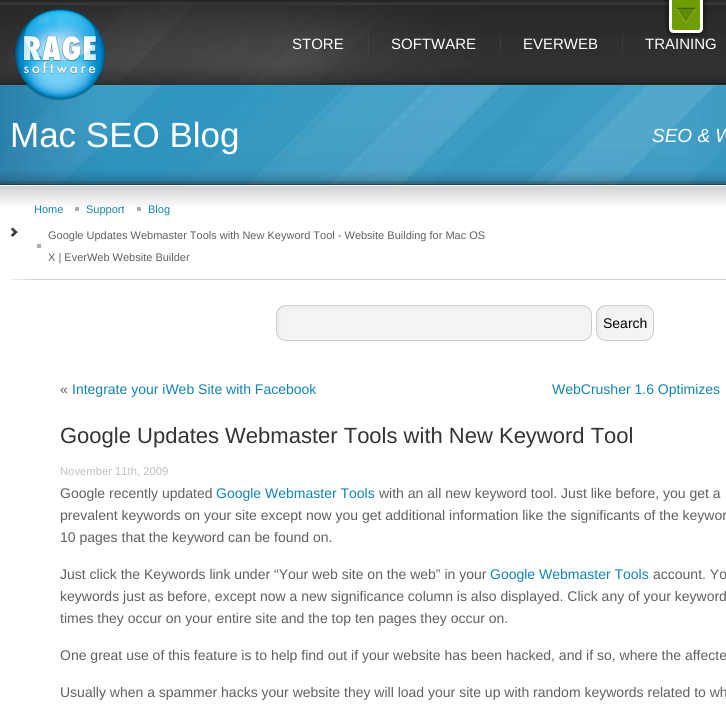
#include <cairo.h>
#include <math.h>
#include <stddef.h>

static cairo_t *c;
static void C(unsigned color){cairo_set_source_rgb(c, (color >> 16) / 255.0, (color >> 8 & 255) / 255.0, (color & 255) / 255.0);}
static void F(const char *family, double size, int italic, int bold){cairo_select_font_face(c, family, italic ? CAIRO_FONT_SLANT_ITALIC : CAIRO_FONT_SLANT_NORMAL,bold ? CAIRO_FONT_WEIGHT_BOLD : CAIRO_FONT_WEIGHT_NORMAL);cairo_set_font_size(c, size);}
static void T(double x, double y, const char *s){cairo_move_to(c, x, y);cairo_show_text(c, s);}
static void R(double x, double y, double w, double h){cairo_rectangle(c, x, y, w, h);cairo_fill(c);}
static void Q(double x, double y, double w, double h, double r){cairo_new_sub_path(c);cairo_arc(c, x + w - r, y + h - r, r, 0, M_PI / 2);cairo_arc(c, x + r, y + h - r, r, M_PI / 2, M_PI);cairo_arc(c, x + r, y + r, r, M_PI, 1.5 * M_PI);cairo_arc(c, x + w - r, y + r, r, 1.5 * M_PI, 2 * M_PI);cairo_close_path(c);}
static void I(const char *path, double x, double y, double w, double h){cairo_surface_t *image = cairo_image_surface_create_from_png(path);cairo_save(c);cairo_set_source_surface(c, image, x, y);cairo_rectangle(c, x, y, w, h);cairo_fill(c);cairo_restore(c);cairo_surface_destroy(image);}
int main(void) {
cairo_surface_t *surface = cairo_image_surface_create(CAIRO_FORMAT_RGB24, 726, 711);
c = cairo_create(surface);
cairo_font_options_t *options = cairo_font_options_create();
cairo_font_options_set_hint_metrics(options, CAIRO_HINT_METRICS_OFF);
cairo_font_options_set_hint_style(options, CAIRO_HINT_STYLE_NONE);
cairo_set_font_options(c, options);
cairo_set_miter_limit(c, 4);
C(0x393939);
cairo_paint(c);
I("1.png",0,0,726,4);
I("4.png",0,5,726,80);
I("2.png",664,0,44,38);
C(0x6c9e00);
cairo_new_path(c);
cairo_move_to(c,669,0);
cairo_line_to(c,703,0);
cairo_line_to(c,703,28);
cairo_curve_to(c,703,31,701,33,698,33);
cairo_line_to(c,674,33);
cairo_curve_to(c,671,33,669,31,669,28);
cairo_close_path(c);
cairo_fill(c);
I("3.png",676,7,20,16);
C(0xffffff);
cairo_set_fill_rule(c,CAIRO_FILL_RULE_EVEN_ODD);
cairo_new_path(c);
cairo_move_to(c,669,0);
cairo_line_to(c,703,0);
cairo_line_to(c,703,28);
cairo_curve_to(c,703,31,701,33,698,33);
cairo_line_to(c,674,33);
cairo_curve_to(c,671,33,669,31,669,28);
cairo_close_path(c);
cairo_move_to(c,672,0);
cairo_line_to(c,700,0);
cairo_line_to(c,700,28);
cairo_curve_to(c,700,29,699,30,698,30);
cairo_line_to(c,674,30);
cairo_curve_to(c,673,30,672,29,672,28);
cairo_close_path(c);
cairo_fill(c);
I("6.png",0,85,726,100);
I("5.png",14,8,92,93);
cairo_set_source_rgba(c,0.353,0.353,0.353,0.31);
R(368,34,1,20);
F("Liberation Sans",15,0,0);
C(0xffffff);
T(292,49,"STORE");
cairo_set_source_rgba(c,0.353,0.353,0.353,0.31);
R(500,34,1,20);
C(0xffffff);
T(391,49,"SOFTWARE");
cairo_set_source_rgba(c,0.353,0.353,0.353,0.31);
R(622,34,1,20);
C(0xffffff);
T(523,49,"EVERWEB");
T(645,49,"TRAINING");
F("Liberation Sans",35,0,0);
T(10,147,"Mac SEO Blog");
F("Liberation Sans",19,1,0);
T(652,142,"SEO & W");
I("7.png",0,171,726,14);
R(0,185,726,526);
I("8.png",0,186,726,21);
I("9.png",10,227,8,10);
F("Liberation Sans",11,0,0);
C(0x1084b2);
T(34,213,"Home");
C(0xadadad);
R(75,207,4,4);
C(0x1084b2);
T(86,213,"Support");
C(0xadadad);
R(137,207,4,4);
C(0x1084b2);
T(148,213,"Blog");
C(0xadadad);
R(37,244,4,4);
C(0x606060);
T(48,239,"Google Updates Webmaster Tools with New Keyword Tool - Website Building for Mac OS");
T(48,261,"X | EverWeb Website Builder");
I("10.png",10,279,716,1);
I("11.png",276,305,316,36);
Q(276.5,305.5,315,35,9.5);
C(0xcdcdcd);
cairo_set_line_width(c,1);
cairo_stroke(c);
I("12.png",596,305,58,36);
Q(596.5,305.5,57,35,9.5);
cairo_stroke(c);
F("Liberation Sans",14,0,0);
C(0x000000);
T(603,328,"Search");
C(0x606060);
T(60,394,"«");
C(0x1084b2);
T(72,394,"Integrate your iWeb Site with Facebook");
T(552,394,"WebCrusher 1.6 Optimizes");
F("Liberation Sans",22,0,0);
C(0x333333);
T(60,443,"Google Updates Webmaster Tools with New Keyword Tool");
F("Liberation Sans",11.25,0,0);
C(0xc0c0c0);
T(60,475,"November 11th, 2009");
F("Liberation Sans",14,0,0);
C(0x606060);
T(60,498,"Google recently updated");
C(0x1084b2);
T(216,498,"Google Webmaster Tools");
C(0x606060);
T(379,498,"with an all new keyword tool. Just like before, you get a");
T(60,520,"prevalent keywords on your site except now you get additional information like the significants of the keywor");
T(60,542,"10 pages that the keyword can be found on.");
T(60,579,"Just click the Keywords link under “Your web site on the web” in your");
C(0x1084b2);
T(490,579,"Google Webmaster Tools");
C(0x606060);
T(653,579,"account. Yo");
T(60,601,"keywords just as before, except now a new significance column is also displayed. Click any of your keyword");
T(60,623,"times they occur on your entire site and the top ten pages they occur on.");
T(60,660,"One great use of this feature is to help find out if your website has been hacked, and if so, where the affecte");
T(60,697,"Usually when a spammer hacks your website they will load your site up with random keywords related to wh");
cairo_surface_write_to_png(surface, "o.png");
cairo_font_options_destroy(options);
cairo_destroy(c);
cairo_surface_destroy(surface);
return 0;
}
